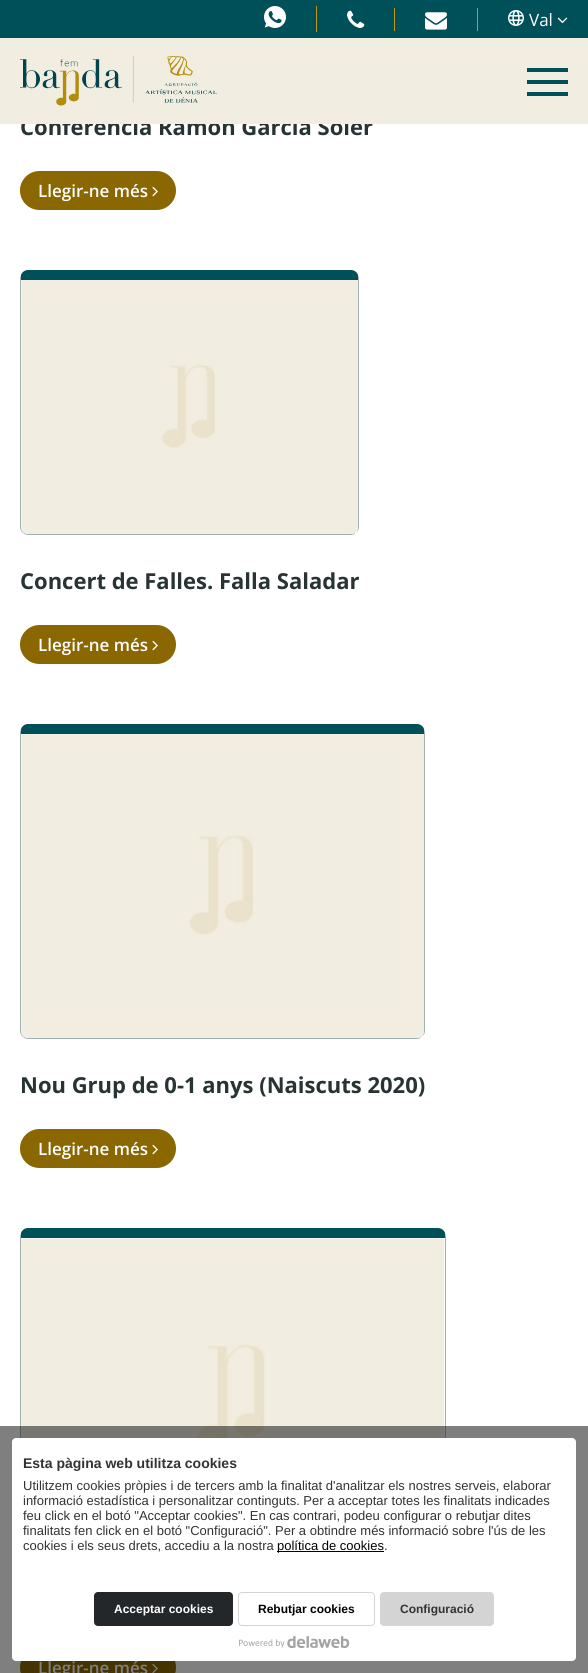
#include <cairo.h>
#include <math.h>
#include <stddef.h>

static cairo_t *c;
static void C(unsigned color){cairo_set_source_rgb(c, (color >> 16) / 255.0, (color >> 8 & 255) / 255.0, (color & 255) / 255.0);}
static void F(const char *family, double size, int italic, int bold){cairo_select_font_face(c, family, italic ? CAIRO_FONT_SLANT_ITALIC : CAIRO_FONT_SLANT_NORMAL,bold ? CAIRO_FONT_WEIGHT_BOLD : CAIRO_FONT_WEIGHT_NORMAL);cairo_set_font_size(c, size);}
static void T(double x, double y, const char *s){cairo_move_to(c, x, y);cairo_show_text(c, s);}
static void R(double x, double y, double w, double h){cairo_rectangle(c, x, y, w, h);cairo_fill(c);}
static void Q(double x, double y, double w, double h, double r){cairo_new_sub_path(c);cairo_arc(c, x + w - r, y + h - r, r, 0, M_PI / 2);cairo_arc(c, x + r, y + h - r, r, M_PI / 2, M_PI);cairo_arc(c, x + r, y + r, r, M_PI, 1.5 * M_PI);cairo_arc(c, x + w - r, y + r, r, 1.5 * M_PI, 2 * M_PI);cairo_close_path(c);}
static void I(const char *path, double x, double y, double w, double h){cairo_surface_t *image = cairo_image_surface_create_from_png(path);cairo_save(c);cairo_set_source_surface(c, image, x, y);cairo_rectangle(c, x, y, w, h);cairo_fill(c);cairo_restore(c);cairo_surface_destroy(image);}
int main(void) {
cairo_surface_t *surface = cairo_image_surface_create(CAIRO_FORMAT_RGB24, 588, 1673);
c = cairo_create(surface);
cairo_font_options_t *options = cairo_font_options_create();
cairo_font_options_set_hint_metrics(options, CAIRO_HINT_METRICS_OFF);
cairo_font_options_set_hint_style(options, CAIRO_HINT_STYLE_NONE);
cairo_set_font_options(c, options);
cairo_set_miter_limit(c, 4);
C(0xffffff);
cairo_paint(c);
F("Open Sans",22,0,1);
C(0x283334);
T(20,135,"Conferencia Ramon Garcia Soler");
C(0xf1ede0);
R(0,38,588,86);
C(0x00505a);
R(0,0,588,38);
I("1.png",264,6,22,22);
C(0xc4960b);
R(316,6,1,26);
I("2.png",347,10,18,18);
R(394,8,1,23);
I("3.png",425,12,22,18);
R(477,8,1,23);
I("4.png",508,10,16,16);
F("Open Sans",17,0,0);
C(0xffffff);
T(529,26,"Val");
I("5.png",557,17,11,7);
I("6.png",20,56,197,50);
C(0x00505a);
R(527,68,41,4);
R(527,80,41,4);
R(527,92,41,4);
C(0x8a6700);
Q(20,171,156,39,19.5);
cairo_fill(c);
F("Open Sans SemiBold",17,0,0);
C(0xffffff);
T(38,197,"Llegir-ne més");
I("7.png",152,186,6,11);
C(0x00505a);
cairo_new_path(c);
cairo_move_to(c,28,270);
cairo_curve_to(c,25,270,22,272,21,275);
cairo_line_to(c,21,280);
cairo_line_to(c,358,280);
cairo_line_to(c,358,275);
cairo_curve_to(c,357,272,354,270,351,270);
cairo_close_path(c);
cairo_fill(c);
C(0xa1b0b1);
cairo_new_path(c);
cairo_move_to(c,359,527);
cairo_line_to(c,359,278);
cairo_line_to(c,358,275);
cairo_line_to(c,358,280);
cairo_line_to(c,358,527);
cairo_curve_to(c,358,529,357,531,356,532);
cairo_curve_to(c,358,531,359,529,359,527);
cairo_close_path(c);
cairo_fill(c);
cairo_new_path(c);
cairo_move_to(c,28,535);
cairo_line_to(c,351,535);
cairo_curve_to(c,353,535,355,534,356,532);
cairo_curve_to(c,355,533,353,534,351,534);
cairo_line_to(c,28,534);
cairo_curve_to(c,26,534,24,533,23,532);
cairo_line_to(c,22,532);
cairo_curve_to(c,24,534,26,535,28,535);
cairo_close_path(c);
cairo_fill(c);
cairo_new_path(c);
cairo_move_to(c,20,278);
cairo_line_to(c,20,527);
cairo_curve_to(c,20,529,21,531,22,532);
cairo_line_to(c,23,532);
cairo_curve_to(c,22,531,21,529,21,527);
cairo_line_to(c,21,280);
cairo_line_to(c,21,275);
cairo_close_path(c);
cairo_fill(c);
I("8.png",21,280,337,254);
F("Open Sans",22,0,1);
C(0x283334);
T(20,589,"Concert de Falles. Falla Saladar");
C(0x8a6700);
Q(20,625,156,39,19.5);
cairo_fill(c);
F("Open Sans SemiBold",17,0,0);
C(0xffffff);
T(38,651,"Llegir-ne més");
I("7.png",152,640,6,11);
C(0x00505a);
cairo_new_path(c);
cairo_move_to(c,28,724);
cairo_curve_to(c,25,724,22,726,21,729);
cairo_line_to(c,21,734);
cairo_line_to(c,424,734);
cairo_line_to(c,424,729);
cairo_curve_to(c,423,726,420,724,417,724);
cairo_close_path(c);
cairo_fill(c);
C(0xa1b0b1);
cairo_new_path(c);
cairo_move_to(c,425,1031);
cairo_line_to(c,425,732);
cairo_line_to(c,424,729);
cairo_line_to(c,424,734);
cairo_line_to(c,424,1031);
cairo_curve_to(c,424,1033,423,1035,422,1036);
cairo_curve_to(c,424,1035,425,1033,425,1031);
cairo_close_path(c);
cairo_fill(c);
cairo_new_path(c);
cairo_move_to(c,28,1039);
cairo_line_to(c,417,1039);
cairo_curve_to(c,419,1039,421,1038,422,1036);
cairo_curve_to(c,421,1037,419,1038,417,1038);
cairo_line_to(c,28,1038);
cairo_curve_to(c,26,1038,24,1037,23,1036);
cairo_line_to(c,22,1036);
cairo_curve_to(c,24,1038,26,1039,28,1039);
cairo_close_path(c);
cairo_fill(c);
cairo_new_path(c);
cairo_move_to(c,20,732);
cairo_line_to(c,20,1031);
cairo_curve_to(c,20,1033,21,1035,22,1036);
cairo_line_to(c,23,1036);
cairo_curve_to(c,22,1035,21,1033,21,1031);
cairo_line_to(c,21,734);
cairo_line_to(c,21,729);
cairo_close_path(c);
cairo_fill(c);
I("9.png",21,734,403,304);
F("Open Sans",22,0,1);
C(0x283334);
T(20,1093,"Nou Grup de 0-1 anys (Naiscuts 2020)");
C(0x8a6700);
Q(20,1129,156,39,19.5);
cairo_fill(c);
F("Open Sans SemiBold",17,0,0);
C(0xffffff);
T(38,1155,"Llegir-ne més");
I("7.png",152,1144,6,11);
C(0x00505a);
cairo_new_path(c);
cairo_move_to(c,28,1228);
cairo_curve_to(c,25,1228,22,1230,21,1233);
cairo_line_to(c,21,1238);
cairo_line_to(c,445,1238);
cairo_line_to(c,445,1233);
cairo_curve_to(c,444,1230,441,1228,438,1228);
cairo_close_path(c);
cairo_fill(c);
C(0xa1b0b1);
cairo_new_path(c);
cairo_move_to(c,446,1550);
cairo_line_to(c,446,1236);
cairo_line_to(c,445,1233);
cairo_line_to(c,445,1238);
cairo_line_to(c,445,1550);
cairo_curve_to(c,445,1552,444,1554,443,1555);
cairo_line_to(c,444,1556);
cairo_curve_to(c,445,1554,446,1552,446,1550);
cairo_close_path(c);
cairo_fill(c);
cairo_new_path(c);
cairo_move_to(c,20,1236);
cairo_line_to(c,20,1550);
cairo_curve_to(c,20,1552,21,1554,22,1556);
cairo_line_to(c,23,1555);
cairo_curve_to(c,22,1554,21,1552,21,1550);
cairo_line_to(c,21,1238);
cairo_line_to(c,21,1233);
cairo_close_path(c);
cairo_fill(c);
I("10.png",21,1238,424,200);
C(0x8a6700);
Q(20,1648,156,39,19.5);
cairo_fill(c);
C(0xffffff);
T(38,1674,"Llegir-ne més");
I("11.png",152,1663,6,10);
cairo_set_source_rgba(c,0,0,0,0.5);
R(0,1426,588,247);
C(0xffffff);
Q(12.5,1438.5,563,222,3.5);
cairo_fill_preserve(c);
cairo_set_line_width(c,1);
cairo_stroke(c);
F("Liberation Sans",14,0,1);
C(0x333333);
T(23,1468,"Esta pàgina web utilitza cookies");
F("Liberation Sans",13,0,0);
T(23,1490,"Utilitzem cookies pròpies i de tercers amb la finalitat d'analitzar els nostres serveis, elaborar");
T(23,1505,"informació estadística i personalitzar continguts. Per a acceptar totes les finalitats indicades");
T(23,1520,"feu click en el botó \"Acceptar cookies\". En cas contrari, podeu configurar o rebutjar dites");
T(23,1535,"finalitats fen click en el botó \"Configuració\". Per a obtindre més informació sobre l'ús de les");
T(23,1550,"cookies i els seus drets, accediu a la nostra");
C(0x000000);
R(277,1551,107,1);
T(277,1550,"política de cookies");
C(0x333333);
T(384,1550,".");
C(0x24272a);
Q(94,1592,139,34,4);
cairo_fill(c);
F("Liberation Sans",12,0,1);
C(0xffffff);
T(114,1613,"Acceptar cookies");
Q(238.5,1592.5,136,33,3.5);
C(0xd4d4d4);
cairo_stroke(c);
C(0x000000);
T(258,1613,"Rebutjar cookies");
C(0xd4d4d4);
Q(380,1592,114,34,4);
cairo_fill(c);
C(0x333333);
T(400,1613,"Configuració");
I("12.png",239,1636,111,12);
cairo_surface_write_to_png(surface, "o.png");
cairo_font_options_destroy(options);
cairo_destroy(c);
cairo_surface_destroy(surface);
return 0;
}
